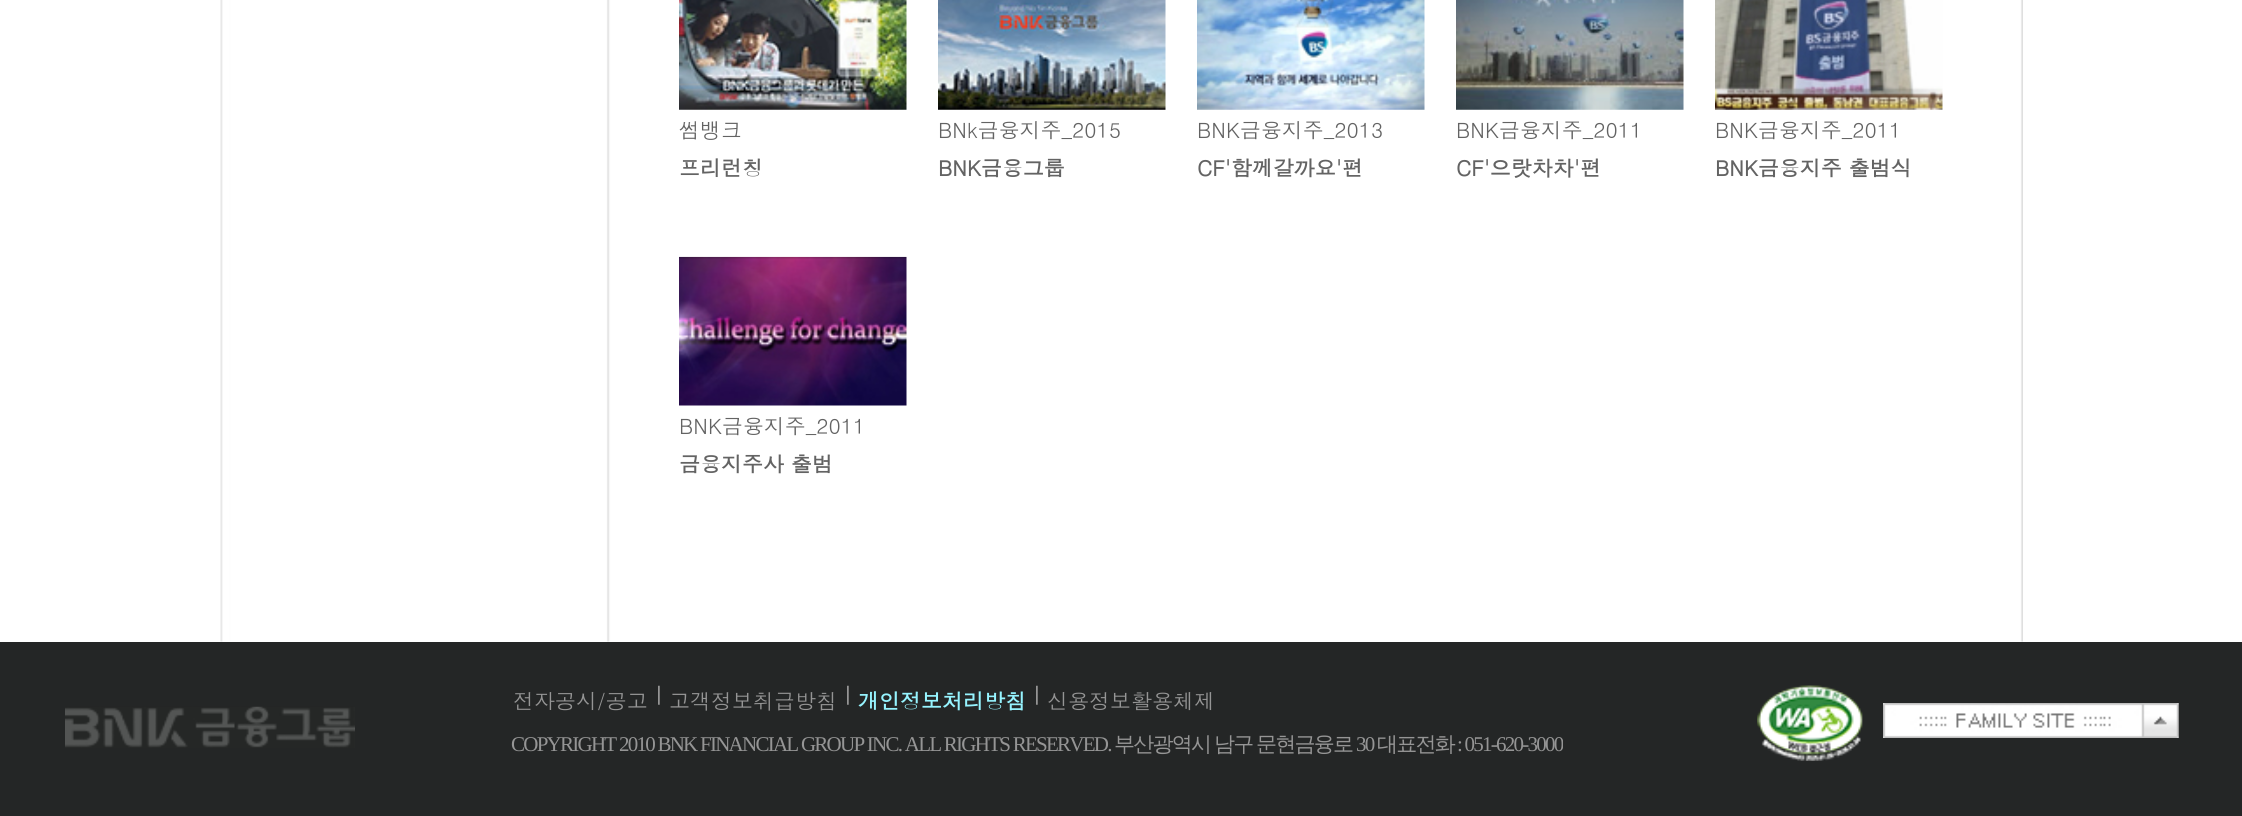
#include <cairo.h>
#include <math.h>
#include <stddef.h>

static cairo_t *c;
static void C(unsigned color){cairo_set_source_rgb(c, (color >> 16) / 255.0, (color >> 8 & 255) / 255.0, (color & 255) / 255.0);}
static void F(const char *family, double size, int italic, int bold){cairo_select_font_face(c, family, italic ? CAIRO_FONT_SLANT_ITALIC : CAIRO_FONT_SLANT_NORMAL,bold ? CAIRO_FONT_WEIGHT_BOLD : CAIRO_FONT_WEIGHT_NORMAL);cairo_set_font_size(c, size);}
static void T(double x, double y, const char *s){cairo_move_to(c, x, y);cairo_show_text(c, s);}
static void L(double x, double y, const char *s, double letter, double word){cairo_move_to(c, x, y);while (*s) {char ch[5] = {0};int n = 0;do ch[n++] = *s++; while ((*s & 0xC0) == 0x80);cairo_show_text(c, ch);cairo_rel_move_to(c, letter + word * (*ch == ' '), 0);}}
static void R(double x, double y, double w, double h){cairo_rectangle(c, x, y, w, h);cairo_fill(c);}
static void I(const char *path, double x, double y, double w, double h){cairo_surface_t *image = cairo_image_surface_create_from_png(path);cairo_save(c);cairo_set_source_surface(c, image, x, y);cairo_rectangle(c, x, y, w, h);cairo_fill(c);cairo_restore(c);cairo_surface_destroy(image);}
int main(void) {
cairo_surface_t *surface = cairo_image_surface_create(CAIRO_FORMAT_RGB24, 2242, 816);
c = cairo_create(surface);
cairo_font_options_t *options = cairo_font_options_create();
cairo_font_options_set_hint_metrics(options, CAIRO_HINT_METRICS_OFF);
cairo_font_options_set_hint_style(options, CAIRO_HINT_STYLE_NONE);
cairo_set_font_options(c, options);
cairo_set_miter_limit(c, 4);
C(0xffffff);
cairo_paint(c);
I("1.png",220,0,1803,642);
I("2.png",679,0,228,110);
F("Dotum",21,0,0);
C(0x636363);
T(679,138,"썸뱅크");
F("Dotum",21,0,1);
T(679,176,"프리런칭");
I("3.png",938,0,228,110);
F("Dotum",21,0,0);
T(938,138,"BNk금융지주_2015");
F("Dotum",21,0,1);
T(938,176,"BNK금융그룹");
I("4.png",1197,0,228,110);
F("Dotum",21,0,0);
T(1197,138,"BNK금융지주_2013");
F("Dotum",21,0,1);
T(1197,176,"CF'함께갈까요'편");
I("5.png",1456,0,228,110);
F("Dotum",21,0,0);
T(1456,138,"BNK금융지주_2011");
F("Dotum",21,0,1);
T(1456,176,"CF'으랏차차'편");
I("6.png",1715,0,228,110);
F("Dotum",21,0,0);
T(1715,138,"BNK금융지주_2011");
F("Dotum",21,0,1);
T(1715,176,"BNK금융지주 출범식");
I("7.png",679,256,228,150);
F("Dotum",21,0,0);
T(679,434,"BNK금융지주_2011");
F("Dotum",21,0,1);
T(679,472,"금융지주사 출범");
C(0x242626);
R(0,642,2242,174);
F("Dotum",21,0,0);
C(0x959595);
T(513,709,"전자공시/공고");
I("8.png",658,685,2,20);
T(669,709,"고객정보취급방침");
I("8.png",847,685,2,20);
F("Dotum",21,0,1);
C(0x96f4ff);
T(858,709,"개인정보처리방침");
I("8.png",1036,685,2,20);
F("Dotum",21,0,0);
C(0x959595);
T(1047,709,"신용정보활용체제");
I("9.png",1757,685,106,76);
I("10.png",65,706,290,42);
F("Liberation Serif",21,0,0);
L(511,751,"COPYRIGHT 2010 BNK FINANCIAL GROUP INC. ALL RIGHTS RESERVED.",-1.75,0);
F("WenQuanYi Zen Hei Medium",21,0,0);
L(1114,751,"부산광역시",-1.75,0);
L(1214,751,"남구",-1.75,0);
L(1256,751,"문현금융로",-1.75,0);
F("Liberation Serif",21,0,0);
L(1356,751,"30",-1.75,0);
F("WenQuanYi Zen Hei Medium",21,0,0);
L(1377,751,"대표전화",-1.75,0);
cairo_save(c);
cairo_rectangle(c,511,730,1052,30);
cairo_clip(c);
F("Liberation Serif",21,0,0);
L(1457,751,": 051-620-3000",-1.75,0);
cairo_restore(c);
I("11.png",1883,703,296,35);
cairo_surface_write_to_png(surface, "o.png");
cairo_font_options_destroy(options);
cairo_destroy(c);
cairo_surface_destroy(surface);
return 0;
}
